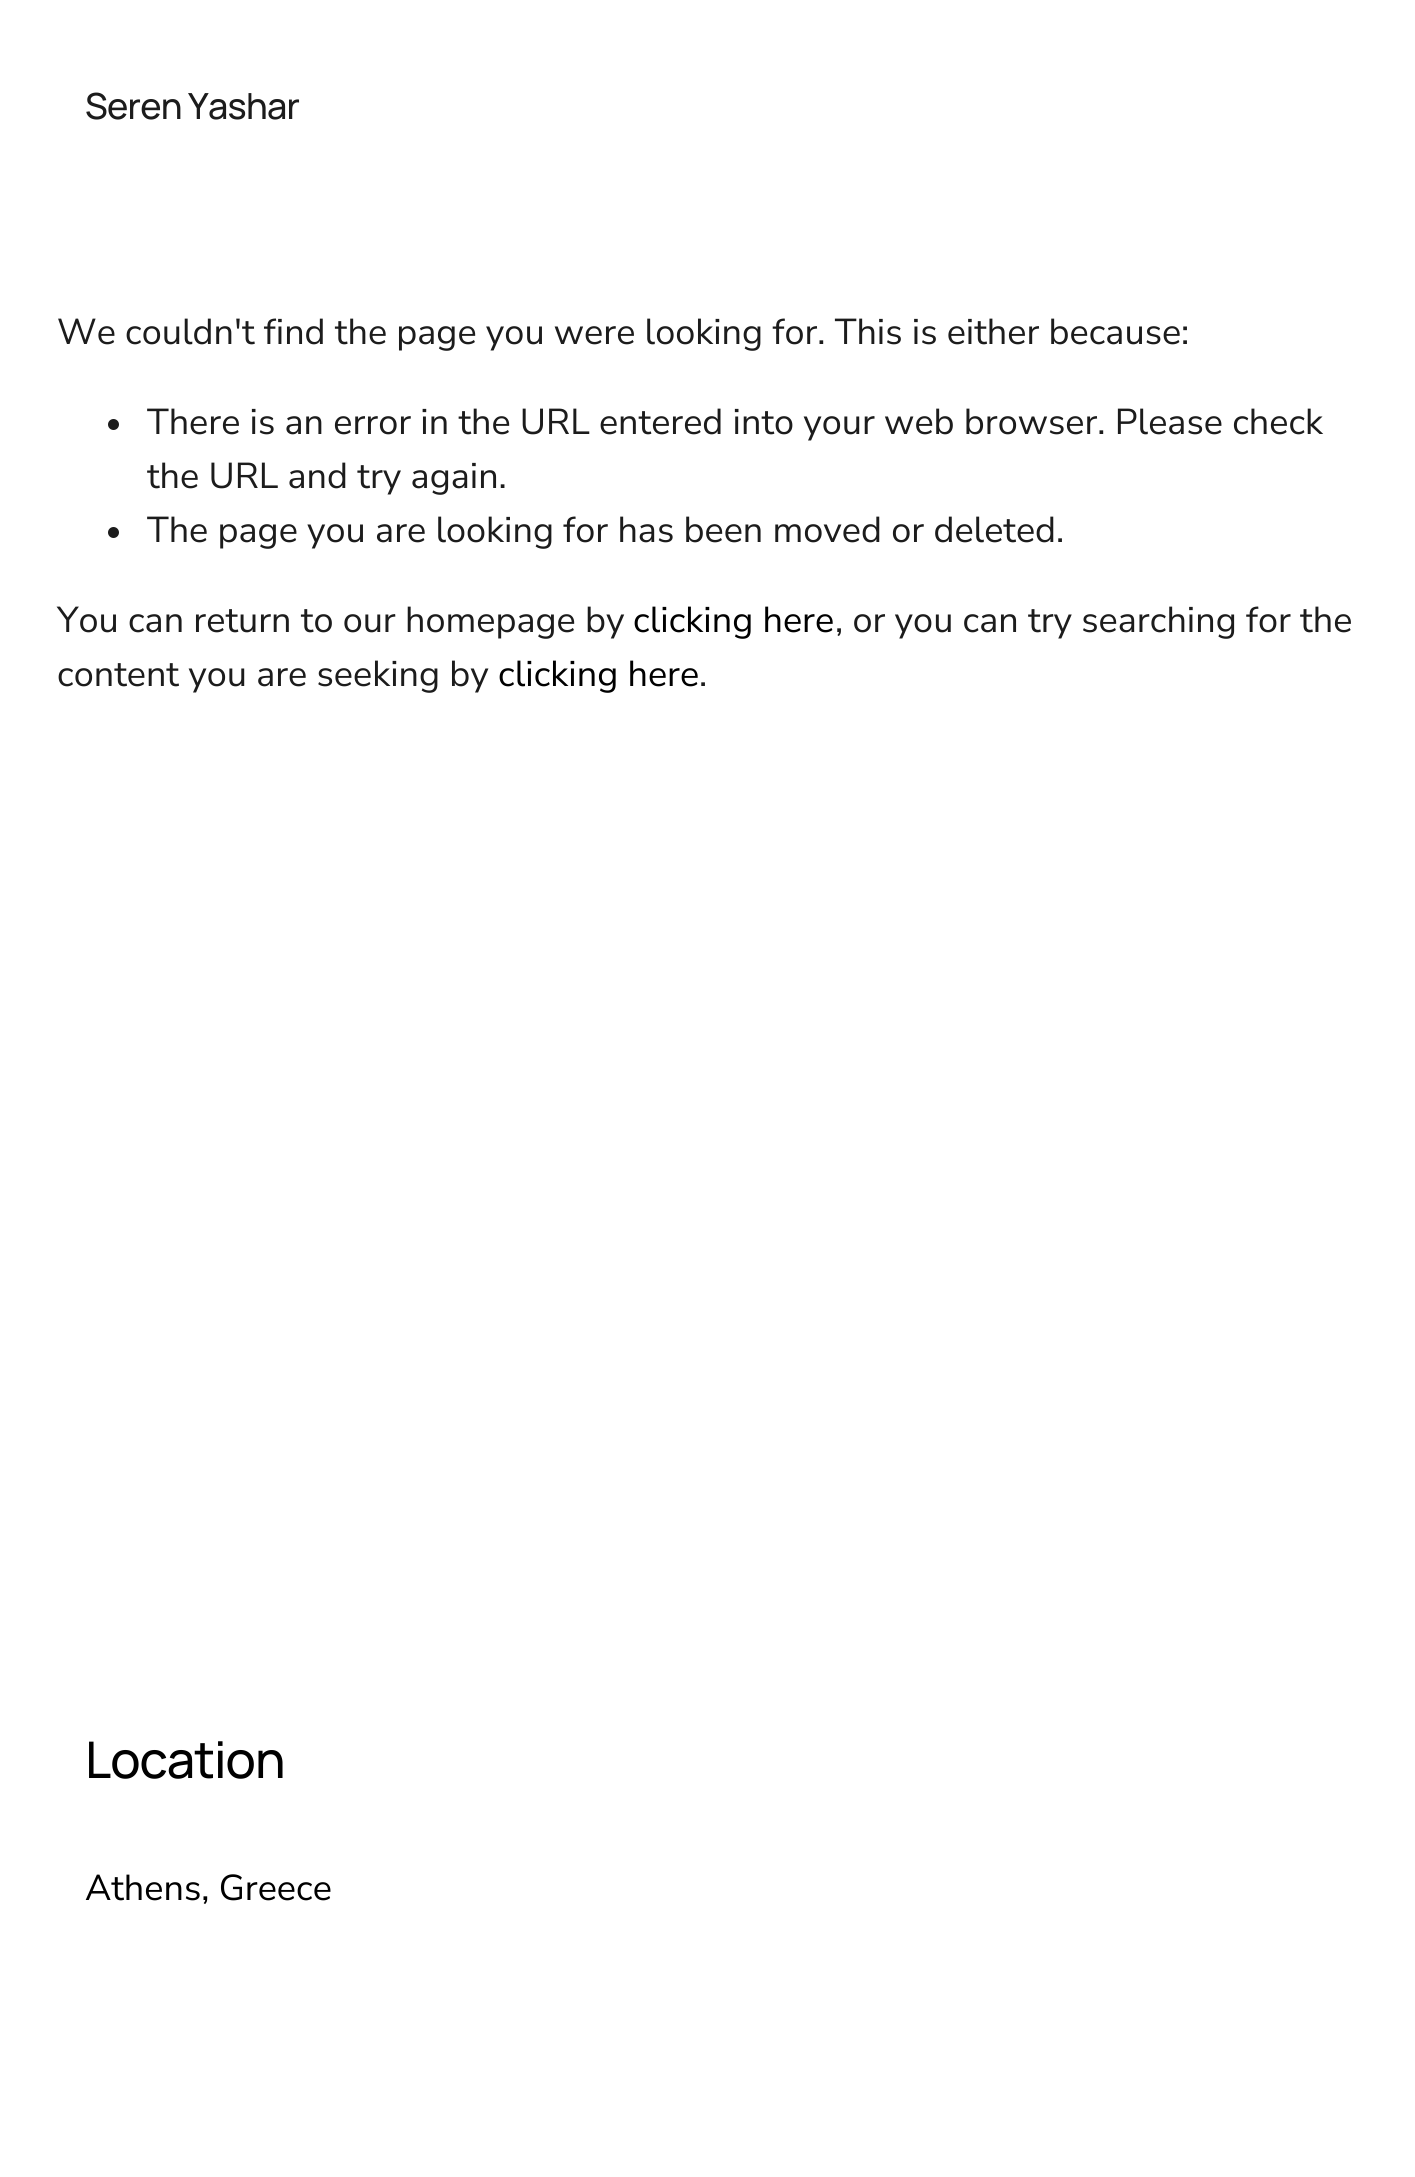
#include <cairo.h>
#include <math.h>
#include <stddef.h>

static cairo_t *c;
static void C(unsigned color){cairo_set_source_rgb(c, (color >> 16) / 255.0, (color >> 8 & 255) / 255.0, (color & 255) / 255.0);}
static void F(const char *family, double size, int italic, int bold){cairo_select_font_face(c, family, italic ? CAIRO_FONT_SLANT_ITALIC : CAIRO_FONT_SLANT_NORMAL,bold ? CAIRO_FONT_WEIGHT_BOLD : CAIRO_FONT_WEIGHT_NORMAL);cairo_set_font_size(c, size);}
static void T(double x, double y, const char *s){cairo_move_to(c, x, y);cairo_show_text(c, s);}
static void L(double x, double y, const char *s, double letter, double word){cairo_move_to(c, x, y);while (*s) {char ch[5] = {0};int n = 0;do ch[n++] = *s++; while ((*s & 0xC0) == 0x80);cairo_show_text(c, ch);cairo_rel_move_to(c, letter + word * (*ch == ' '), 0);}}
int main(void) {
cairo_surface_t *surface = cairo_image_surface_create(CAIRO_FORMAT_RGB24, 1415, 2177);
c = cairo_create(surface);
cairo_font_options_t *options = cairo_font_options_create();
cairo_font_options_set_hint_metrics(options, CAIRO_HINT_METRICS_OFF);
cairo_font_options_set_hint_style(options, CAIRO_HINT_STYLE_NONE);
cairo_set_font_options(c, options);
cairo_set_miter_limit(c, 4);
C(0xffffff);
cairo_paint(c);
F("Manrope Medium",36,0,0);
C(0x1c1c1c);
L(85,119,"Seren Yashar",-.75,0);
F("Nunito Sans",36,0,0);
T(57,344,"We couldn't find the page you were looking for. This is either because:");
cairo_new_path(c);
cairo_arc(c,113.5,424.5,5.5,0,2 * M_PI);
cairo_fill(c);
T(147,434,"There is an error in the URL entered into your web browser. Please check");
T(147,488,"the URL and try again.");
cairo_new_path(c);
cairo_arc(c,113.5,532.5,5.5,0,2 * M_PI);
cairo_fill(c);
T(147,542,"The page you are looking for has been moved or deleted.");
T(57,632,"You can return to our homepage by");
C(0x000000);
T(633,632,"clicking here");
C(0x1c1c1c);
T(835,632,", or you can try searching for the");
T(57,686,"content you are seeking by");
C(0x000000);
T(498,686,"clicking here");
C(0x1c1c1c);
T(699,686,".");
F("Manrope Medium",50.5,0,0);
C(0x000000);
L(85,1778,"Location",-1,0);
F("Nunito Sans",36,0,0);
T(85,1900,"Athens, Greece");
cairo_surface_write_to_png(surface, "o.png");
cairo_font_options_destroy(options);
cairo_destroy(c);
cairo_surface_destroy(surface);
return 0;
}
